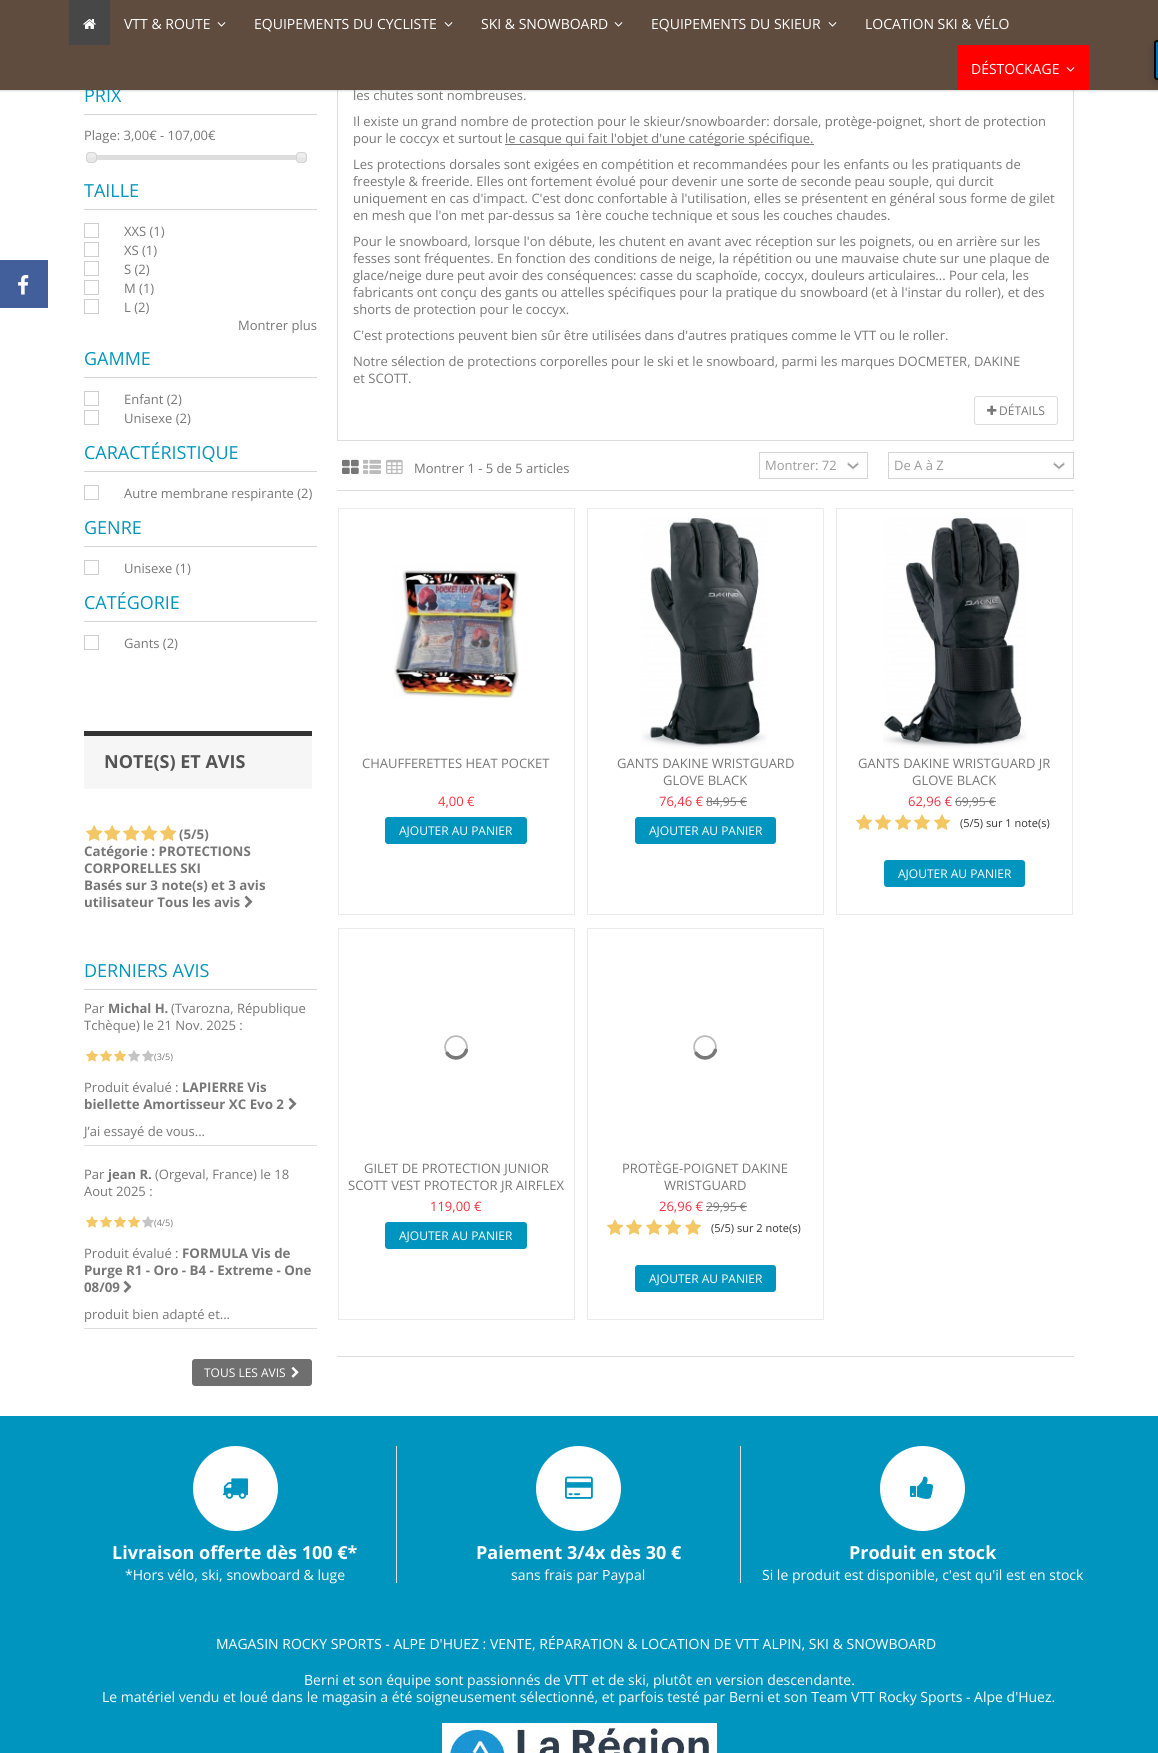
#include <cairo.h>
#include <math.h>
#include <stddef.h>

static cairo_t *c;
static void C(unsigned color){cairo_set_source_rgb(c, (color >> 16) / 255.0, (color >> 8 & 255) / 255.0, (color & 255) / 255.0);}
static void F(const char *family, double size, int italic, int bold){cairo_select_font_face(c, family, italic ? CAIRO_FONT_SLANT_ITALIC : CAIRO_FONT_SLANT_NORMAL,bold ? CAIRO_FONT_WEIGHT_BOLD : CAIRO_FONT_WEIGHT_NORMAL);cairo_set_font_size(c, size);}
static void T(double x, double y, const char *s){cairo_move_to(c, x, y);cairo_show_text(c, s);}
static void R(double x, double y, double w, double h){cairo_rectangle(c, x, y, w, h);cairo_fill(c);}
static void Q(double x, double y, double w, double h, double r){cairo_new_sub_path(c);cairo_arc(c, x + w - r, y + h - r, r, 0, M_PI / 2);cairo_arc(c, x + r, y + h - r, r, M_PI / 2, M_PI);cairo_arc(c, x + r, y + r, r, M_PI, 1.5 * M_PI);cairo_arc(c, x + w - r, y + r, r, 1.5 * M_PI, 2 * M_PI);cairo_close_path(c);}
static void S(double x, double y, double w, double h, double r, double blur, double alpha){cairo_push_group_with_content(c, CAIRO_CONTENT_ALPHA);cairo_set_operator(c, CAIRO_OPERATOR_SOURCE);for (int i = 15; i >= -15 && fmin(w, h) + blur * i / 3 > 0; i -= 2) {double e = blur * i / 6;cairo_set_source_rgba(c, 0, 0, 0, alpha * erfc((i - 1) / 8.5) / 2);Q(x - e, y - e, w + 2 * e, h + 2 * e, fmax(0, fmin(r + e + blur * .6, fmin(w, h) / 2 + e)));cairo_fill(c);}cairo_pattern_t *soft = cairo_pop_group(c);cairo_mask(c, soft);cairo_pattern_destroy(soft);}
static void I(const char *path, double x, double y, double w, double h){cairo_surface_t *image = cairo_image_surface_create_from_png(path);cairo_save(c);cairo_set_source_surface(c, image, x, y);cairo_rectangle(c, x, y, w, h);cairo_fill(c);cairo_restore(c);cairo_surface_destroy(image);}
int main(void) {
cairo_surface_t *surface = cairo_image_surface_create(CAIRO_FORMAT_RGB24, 1158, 1753);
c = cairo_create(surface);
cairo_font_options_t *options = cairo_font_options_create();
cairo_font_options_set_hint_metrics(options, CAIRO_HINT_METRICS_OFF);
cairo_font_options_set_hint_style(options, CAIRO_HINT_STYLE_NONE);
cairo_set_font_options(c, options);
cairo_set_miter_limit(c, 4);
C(0xffffff);
cairo_paint(c);
cairo_rectangle(c,337.5,28.5,736,412);
C(0xdddddd);
cairo_set_line_width(c,1);
cairo_stroke(c);
C(0x000000);
S(0,1,1158,90,0,1,.15);
F("Open Sans",18,0,0);
C(0x0095be);
T(84,102,"PRIX");
C(0x5f4c3f);
R(0,0,1158,90);
C(0x474747);
R(69,0,41,45);
I("1.png",83,19,13,10);
F("Open Sans",14,0,0);
C(0xffffff);
T(124,29,"VTT & ROUTE");
I("2.png",217,22,9,5);
T(254,29,"EQUIPEMENTS DU CYCLISTE");
I("2.png",444,22,9,5);
T(481,29,"SKI & SNOWBOARD");
I("2.png",614,22,9,5);
T(651,29,"EQUIPEMENTS DU SKIEUR");
I("2.png",828,22,9,5);
T(865,29,"LOCATION SKI & VÉLO");
C(0xff0000);
R(957,45,132,45);
C(0xffffff);
T(971,74,"DÉSTOCKAGE");
I("3.png",1066,67,9,5);
C(0xd6d4d4);
R(84,114,233,1);
F("Open Sans",13,0,0);
C(0x777777);
T(84,140,"Plage: 3,00€ - 107,00€");
cairo_rectangle(c,94.5,155.5,211,4);
C(0xdddddd);
cairo_stroke(c);
R(95,156,201,3);
I("4.png",86,152,11,11);
Q(86.5,152.5,10,10,3.5);
C(0xd3d3d3);
cairo_stroke(c);
I("4.png",296,152,11,11);
Q(296.5,152.5,10,10,3.5);
cairo_stroke(c);
C(0xd6d4d4);
R(84,209,233,1);
F("Open Sans",18,0,0);
C(0x0095be);
T(84,197,"TAILLE");
cairo_rectangle(c,84.5,223.5,14,14);
C(0xcecece);
cairo_stroke(c);
F("Open Sans",13,0,0);
C(0x777777);
T(124,236,"XXS (1)");
cairo_rectangle(c,84.5,242.5,14,14);
C(0xcecece);
cairo_stroke(c);
C(0x777777);
T(124,255,"XS (1)");
cairo_rectangle(c,84.5,261.5,14,14);
C(0xcecece);
cairo_stroke(c);
C(0x777777);
T(124,274,"S (2)");
cairo_rectangle(c,84.5,280.5,14,14);
C(0xcecece);
cairo_stroke(c);
C(0x777777);
T(124,293,"M (1)");
cairo_rectangle(c,84.5,299.5,14,14);
C(0xcecece);
cairo_stroke(c);
C(0x777777);
T(124,312,"L (2)");
T(238,330,"Montrer plus");
C(0xd6d4d4);
R(84,377,233,1);
F("Open Sans",18,0,0);
C(0x0095be);
T(84,365,"GAMME");
cairo_rectangle(c,84.5,391.5,14,14);
C(0xcecece);
cairo_stroke(c);
F("Open Sans",13,0,0);
C(0x777777);
T(124,404,"Enfant (2)");
cairo_rectangle(c,84.5,410.5,14,14);
C(0xcecece);
cairo_stroke(c);
C(0x777777);
T(124,423,"Unisexe (2)");
C(0xd6d4d4);
R(84,471,233,1);
F("Open Sans",18,0,0);
C(0x0095be);
T(84,459,"CARACTÉRISTIQUE");
cairo_rectangle(c,84.5,485.5,14,14);
C(0xcecece);
cairo_stroke(c);
F("Open Sans",13,0,0);
C(0x777777);
T(124,498,"Autre membrane respirante (2)");
C(0xd6d4d4);
R(84,546,233,1);
F("Open Sans",18,0,0);
C(0x0095be);
T(84,534,"GENRE");
cairo_rectangle(c,84.5,560.5,14,14);
C(0xcecece);
cairo_stroke(c);
F("Open Sans",13,0,0);
C(0x777777);
T(124,573,"Unisexe (1)");
C(0xd6d4d4);
R(84,621,233,1);
F("Open Sans",18,0,0);
C(0x0095be);
T(84,609,"CATÉGORIE");
cairo_rectangle(c,84.5,635.5,14,14);
C(0xcecece);
cairo_stroke(c);
F("Open Sans",13,0,0);
C(0x777777);
T(124,648,"Gants (2)");
C(0xf6f6f6);
R(84,736,228,53);
C(0x333333);
R(84,731,228,5);
F("Open Sans",18,0,1);
C(0x555454);
T(104,768,"NOTE(S) ET AVIS");
I("5.png",86,825,17,16);
I("5.png",104,825,17,16);
I("5.png",123,825,17,16);
I("5.png",141,825,17,16);
I("5.png",160,825,17,16);
F("Open Sans",13.3,0,1);
C(0x777777);
T(179,839,"(5/5)");
T(84,856,"Catégorie : PROTECTIONS");
T(84,873,"CORPORELLES SKI");
T(84,890,"Basés sur 3 note(s) et 3 avis");
T(84,907,"utilisateur Tous les avis");
I("6.png",244,895,9,13);
C(0xd6d4d4);
R(84,989,233,1);
F("Open Sans",18,0,0);
C(0x0095be);
T(84,977,"DERNIERS AVIS");
C(0xdddddd);
R(84,1145,233,1);
F("Open Sans",13,0,0);
C(0x777777);
T(84,1013,"Par");
F("Open Sans",13,0,1);
T(108,1013,"Michal H.");
F("Open Sans",13,0,0);
T(171,1013,"(Tvarozna, République");
T(84,1030,"Tchèque) le 21 Nov. 2025 :");
I("7.png",86,1050,12,12);
I("7.png",100,1050,12,12);
I("7.png",114,1050,12,12);
I("8.png",128,1050,12,12);
I("8.png",142,1050,12,12);
F("Open Sans",9,0,0);
T(154,1060,"(3/5)");
F("Open Sans",13.3,0,1);
T(182,1092,"LAPIERRE Vis");
T(84,1109,"biellette Amortisseur XC Evo 2");
I("6.png",288,1097,9,13);
F("Open Sans",13,0,0);
T(84,1092,"Produit évalué :");
T(84,1136,"J’ai essayé de vous...");
C(0xdddddd);
R(84,1328,233,1);
C(0x777777);
T(84,1179,"Par");
F("Open Sans",13,0,1);
T(108,1179,"jean R.");
F("Open Sans",13,0,0);
T(155,1179,"(Orgeval, France) le 18");
T(84,1196,"Aout 2025 :");
I("7.png",86,1216,12,12);
I("7.png",100,1216,12,12);
I("7.png",114,1216,12,12);
I("7.png",128,1216,12,12);
I("8.png",142,1216,12,12);
F("Open Sans",9,0,0);
T(154,1226,"(4/5)");
F("Open Sans",13.3,0,1);
T(182,1258,"FORMULA Vis de");
T(84,1275,"Purge R1 - Oro - B4 - Extreme - One");
T(84,1292,"08/09");
I("6.png",123,1280,9,13);
F("Open Sans",13,0,0);
T(84,1258,"Produit évalué :");
T(84,1319,"produit bien adapté et...");
C(0x6f6f6f);
Q(192,1359,120,27,3);
cairo_fill(c);
F("Open Sans",12,0,0);
C(0xffffff);
T(204,1377,"TOUS LES AVIS");
I("9.png",291,1367,8,11);
F("Open Sans",13,0,0);
C(0x777777);
T(353,100,"les chutes sont nombreuses.");
T(353,126,"Il existe un grand nombre de protection pour le skieur/snowboarder: dorsale, protège-poignet, short de protection");
T(353,143,"pour le coccyx et surtout");
R(505,144,309,1);
T(505,143,"le casque qui fait l'objet d'une catégorie spécifique.");
T(353,169,"Les protections dorsales sont exigées en compétition et recommandées pour les enfants ou les pratiquants de");
T(353,186,"freestyle & freeride. Elles ont fortement évolué pour devenir une sorte de seconde peau souple, qui durcit");
T(353,203,"uniquement en cas d'impact. C'est donc confortable à l'utilisation, elles se présentent en général sous forme de gilet");
T(353,220,"en mesh que l'on met par-dessus sa 1ère couche technique et sous les couches chaudes.");
T(353,246,"Pour le snowboard, lorsque l'on débute, les chutent en avant avec réception sur les poignets, ou en arrière sur les");
T(353,263,"fesses sont fréquentes. En fonction des conditions de neige, la répétition ou une mauvaise chute sur une plaque de");
T(353,280,"glace/neige dure peut avoir des conséquences: casse du scaphoïde, coccyx, douleurs articulaires... Pour cela, les");
T(353,297,"fabricants ont conçu des gants ou attelles spécifiques pour la pratique du snowboard (et à l'instar du roller), et des");
T(353,314,"shorts de protection pour le coccyx.");
T(353,340,"C'est protections peuvent bien sûr être utilisées dans d'autres pratiques comme le VTT ou le roller.");
T(353,366,"Notre sélection de protections corporelles pour le ski et le snowboard, parmi les marques DOCMETER, DAKINE");
T(353,383,"et SCOTT.");
Q(974.5,396.5,83,28,2.5);
C(0xdddddd);
cairo_stroke(c);
I("10.png",987,405,10,10);
F("Open Sans",12,0,0);
C(0x777777);
T(999,415,"DÉTAILS");
C(0xdddddd);
R(337,490,737,1);
I("11.png",342,459,17,15);
I("12.png",363,459,18,15);
I("13.png",386,459,17,15);
F("Open Sans",13,0,0);
C(0x777777);
T(414,473,"Montrer 1 - 5 de 5 articles");
I("14.png",847,462,12,8);
cairo_rectangle(c,759.5,452.5,108,26);
C(0xd6d4d4);
cairo_stroke(c);
C(0x9c9b9b);
T(765,470,"Montrer: 72");
I("14.png",1053,462,12,8);
cairo_rectangle(c,888.5,452.5,185,26);
C(0xd6d4d4);
cairo_stroke(c);
C(0x9c9b9b);
T(894,470,"De A à Z");
cairo_rectangle(c,338.5,508.5,236,406);
C(0xebebeb);
cairo_stroke(c);
I("15.png",393,563,126,135);
C(0x777777);
T(362,768,"CHAUFFERETTES HEAT POCKET");
C(0xf13340);
T(438,806,"4,00 €");
C(0x0095be);
Q(385,817,142,27,3);
cairo_fill(c);
F("Open Sans",12,0,0);
C(0xffffff);
T(399,835,"AJOUTER AU PANIER");
cairo_rectangle(c,587.5,508.5,236,406);
C(0xebebeb);
cairo_stroke(c);
I("16.png",641,518,126,231);
F("Open Sans",13,0,0);
C(0x777777);
T(617,768,"GANTS DAKINE WRISTGUARD");
T(663,785,"GLOVE BLACK");
C(0xf13340);
T(659,806,"76,46 €");
F("Open Sans",12,0,0);
C(0x777777);
T(706,806,"84,95 €");
R(706,801,41,1);
C(0x0095be);
Q(635,817,141,27,3);
cairo_fill(c);
C(0xffffff);
T(649,835,"AJOUTER AU PANIER");
cairo_rectangle(c,836.5,508.5,236,406);
C(0xebebeb);
cairo_stroke(c);
I("17.png",883,518,144,231);
F("Open Sans",13,0,0);
C(0x777777);
T(858,768,"GANTS DAKINE WRISTGUARD JR");
T(912,785,"GLOVE BLACK");
C(0xf13340);
T(908,806,"62,96 €");
F("Open Sans",12,0,0);
C(0x777777);
T(955,806,"69,95 €");
R(955,801,41,1);
I("18.png",856,814,16,16);
I("18.png",875,814,16,16);
I("18.png",895,814,16,16);
I("18.png",914,814,16,16);
I("18.png",934,814,16,16);
F("Open Sans",11,0,0);
C(0x333333);
T(960,827,"(5/5) sur 1 note(s)");
C(0x0095be);
Q(884,860,141,27,3);
cairo_fill(c);
F("Open Sans",12,0,0);
C(0xffffff);
T(898,878,"AJOUTER AU PANIER");
cairo_rectangle(c,338.5,928.5,236,391);
C(0xebebeb);
cairo_stroke(c);
I("19.png",444,1035,24,25);
F("Open Sans",13,0,0);
C(0x777777);
T(364,1173,"GILET DE PROTECTION JUNIOR");
T(348,1190,"SCOTT VEST PROTECTOR JR AIRFLEX");
C(0xf13340);
T(430,1211,"119,00 €");
C(0x0095be);
Q(385,1222,142,27,3);
cairo_fill(c);
F("Open Sans",12,0,0);
C(0xffffff);
T(399,1240,"AJOUTER AU PANIER");
cairo_rectangle(c,587.5,928.5,236,391);
C(0xebebeb);
cairo_stroke(c);
I("19.png",693,1035,24,25);
F("Open Sans",13,0,0);
C(0x777777);
T(622,1173,"PROTÈGE-POIGNET DAKINE");
T(664,1190,"WRISTGUARD");
C(0xf13340);
T(659,1211,"26,96 €");
F("Open Sans",12,0,0);
C(0x777777);
T(706,1211,"29,95 €");
R(706,1206,41,1);
I("18.png",607,1219,16,16);
I("18.png",626,1219,16,16);
I("18.png",646,1219,16,16);
I("18.png",665,1219,16,16);
I("18.png",685,1219,16,16);
F("Open Sans",11,0,0);
C(0x333333);
T(711,1232,"(5/5) sur 2 note(s)");
C(0x0095be);
Q(635,1265,141,27,3);
cairo_fill(c);
F("Open Sans",12,0,0);
C(0xffffff);
T(649,1283,"AJOUTER AU PANIER");
C(0xdddddd);
R(337,1356,737,1);
C(0x0095be);
R(0,1416,1158,337);
C(0xdddddd);
R(396,1446,1,137);
C(0xffffff);
cairo_new_path(c);
cairo_arc(c,235.5,1488.5,42.5,0,2 * M_PI);
cairo_fill(c);
I("20.png",222,1478,26,21);
F("Open Sans",18,0,1);
T(112,1559,"Livraison offerte dès 100 €*");
F("Open Sans",14,0,0);
T(125,1580,"*Hors vélo, ski, snowboard & luge");
C(0xdddddd);
R(740,1446,1,137);
C(0xffffff);
cairo_new_path(c);
cairo_arc(c,578.5,1488.5,42.5,0,2 * M_PI);
cairo_fill(c);
I("21.png",565,1476,28,23);
F("Open Sans",18,0,1);
T(476,1559,"Paiement 3/4x dès 30 €");
F("Open Sans",14,0,0);
T(511,1580,"sans frais par Paypal");
cairo_new_path(c);
cairo_arc(c,922.5,1488.5,42.5,0,2 * M_PI);
cairo_fill(c);
I("22.png",910,1476,24,23);
F("Open Sans",18,0,1);
T(849,1559,"Produit en stock");
F("Open Sans",14,0,0);
T(762,1580,"Si le produit est disponible, c'est qu'il est en stock");
T(216,1649,"MAGASIN ROCKY SPORTS - ALPE D'HUEZ : VENTE, RÉPARATION & LOCATION DE VTT ALPIN, SKI & SNOWBOARD");
T(304,1685,"Berni et son équipe sont passionnés de VTT et de ski, plutôt en version descendante.");
T(102,1702,"Le matériel vendu et loué dans le magasin a été soigneusement sélectionné, et parfois testé par Berni et son Team VTT Rocky Sports - Alpe d'Huez.");
I("23.png",442,1723,275,30);
C(0x000000);
S(1154,44,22,40,3,5,.2);
C(0x0073b7);
cairo_new_path(c);
cairo_move_to(c,1157,41);
cairo_line_to(c,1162,41);
cairo_line_to(c,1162,79);
cairo_line_to(c,1157,79);
cairo_curve_to(c,1156,79,1155,78,1155,77);
cairo_line_to(c,1155,43);
cairo_curve_to(c,1155,42,1156,41,1157,41);
cairo_close_path(c);
cairo_fill_preserve(c);
C(0x000000);
cairo_set_line_width(c,2);
cairo_stroke(c);
C(0x425f9c);
R(0,260,48,48);
I("24.png",18,275,11,20);
cairo_surface_write_to_png(surface, "o.png");
cairo_font_options_destroy(options);
cairo_destroy(c);
cairo_surface_destroy(surface);
return 0;
}
